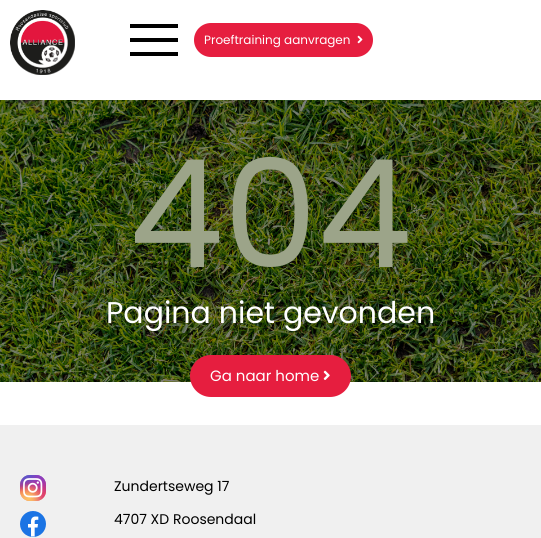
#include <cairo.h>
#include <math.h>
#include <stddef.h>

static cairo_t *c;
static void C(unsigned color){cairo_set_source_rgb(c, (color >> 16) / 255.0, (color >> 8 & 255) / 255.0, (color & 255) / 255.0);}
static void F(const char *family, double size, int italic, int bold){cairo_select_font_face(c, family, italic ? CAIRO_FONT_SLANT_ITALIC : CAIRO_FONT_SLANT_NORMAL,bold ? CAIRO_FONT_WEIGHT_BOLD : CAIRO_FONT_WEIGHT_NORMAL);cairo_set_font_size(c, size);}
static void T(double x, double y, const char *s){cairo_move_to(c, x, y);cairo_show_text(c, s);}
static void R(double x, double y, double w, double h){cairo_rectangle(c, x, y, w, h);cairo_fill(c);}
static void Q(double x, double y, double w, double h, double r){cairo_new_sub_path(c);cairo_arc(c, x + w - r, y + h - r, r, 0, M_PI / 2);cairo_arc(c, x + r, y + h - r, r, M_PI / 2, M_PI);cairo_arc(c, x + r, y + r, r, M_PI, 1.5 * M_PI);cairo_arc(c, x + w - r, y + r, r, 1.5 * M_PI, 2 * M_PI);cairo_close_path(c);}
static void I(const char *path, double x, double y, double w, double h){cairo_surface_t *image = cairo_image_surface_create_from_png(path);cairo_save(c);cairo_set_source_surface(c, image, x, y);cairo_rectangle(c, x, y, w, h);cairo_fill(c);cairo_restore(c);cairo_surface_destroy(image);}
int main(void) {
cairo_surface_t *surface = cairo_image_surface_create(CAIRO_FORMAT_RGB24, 541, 538);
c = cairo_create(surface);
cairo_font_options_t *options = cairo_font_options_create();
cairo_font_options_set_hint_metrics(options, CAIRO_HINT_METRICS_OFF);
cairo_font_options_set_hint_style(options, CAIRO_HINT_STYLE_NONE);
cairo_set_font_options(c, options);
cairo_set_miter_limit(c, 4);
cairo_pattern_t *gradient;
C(0xffffff);
cairo_paint(c);
I("1.png",10,10,65,65);
C(0x000000);
R(130,24,48,4);
R(130,38,48,4);
R(130,52,48,4);
C(0xe61e3f);
Q(194,23,179,34,17);
cairo_fill(c);
F("Poppins",12,0,0);
C(0xffffff);
T(204,44,"Proeftraining aanvragen");
I("2.png",357,35,6,9);
I("3.png",0,100,541,282);
F("Poppins",150,0,0);
C(0x9ca489);
T(129,267,"404");
F("Poppins",30,0,0);
C(0xffffff);
T(106,323,"Pagina niet gevonden");
C(0xe61e3f);
Q(190,355,161,42,21);
cairo_fill(c);
F("Poppins",15,0,0);
C(0xffffff);
T(210,381,"Ga naar home");
I("4.png",323,370,7,10);
C(0xf0f0f0);
R(0,425,541,113);
gradient = cairo_pattern_create_linear(33,475,33,501);
cairo_pattern_add_color_stop_rgba(gradient,0,0.396,0.349,0.792,1);
cairo_pattern_add_color_stop_rgba(gradient,.3,0.737,0.192,0.561,1);
cairo_pattern_add_color_stop_rgba(gradient,.5,0.89,0.247,0.373,1);
cairo_pattern_add_color_stop_rgba(gradient,.7,0.969,0.463,0.22,1);
cairo_pattern_add_color_stop_rgba(gradient,1,0.996,0.776,0.427,1);
cairo_set_source(c,gradient);
cairo_pattern_destroy(gradient);
Q(20,475,26,26,10);
cairo_fill(c);
gradient = cairo_pattern_create_radial(46,501,0,46,501,37);
cairo_pattern_add_color_stop_rgba(gradient,0,0.851,0.192,0.478,1);
cairo_pattern_add_color_stop_rgba(gradient,1,0.851,0.192,0.478,0);
cairo_set_source(c,gradient);
cairo_pattern_destroy(gradient);
Q(20,475,26,26,10);
cairo_fill(c);
gradient = cairo_pattern_create_radial(0,0,0,0,0,1);
cairo_pattern_set_matrix(gradient, &(cairo_matrix_t){1.0 / 22, 0, 0, 1.0 / 44, -1.0 * 36 / 22, -1.0 * 470 / 44});
cairo_pattern_add_color_stop_rgba(gradient,0,0.537,0.239,0.761,1);
cairo_pattern_add_color_stop_rgba(gradient,.5,0.537,0.239,0.761,0);
cairo_set_source(c,gradient);
cairo_pattern_destroy(gradient);
Q(20,475,26,26,10);
cairo_fill(c);
gradient = cairo_pattern_create_radial(46,475,0,46,475,37);
cairo_pattern_add_color_stop_rgba(gradient,0,0.537,0.239,0.761,1);
cairo_pattern_add_color_stop_rgba(gradient,.5,0.537,0.239,0.761,0);
cairo_set_source(c,gradient);
cairo_pattern_destroy(gradient);
Q(20,475,26,26,10);
cairo_fill(c);
gradient = cairo_pattern_create_radial(0,0,0,0,0,1);
cairo_pattern_set_matrix(gradient, &(cairo_matrix_t){1.0 / 29, 0, 0, 1.0 / 55, -1.0 * 25 / 29, -1.0 * 462 / 55});
cairo_pattern_add_color_stop_rgba(gradient,0,0.322,0.345,0.812,1);
cairo_pattern_add_color_stop_rgba(gradient,.5,0.322,0.345,0.812,0);
cairo_set_source(c,gradient);
cairo_pattern_destroy(gradient);
Q(20,475,26,26,10);
cairo_fill(c);
gradient = cairo_pattern_create_radial(0,0,0,0,0,1);
cairo_pattern_set_matrix(gradient, &(cairo_matrix_t){1.0 / 37, 0, 0, 1.0 / 46, -1.0 * 20 / 37, -1.0 * 469 / 46});
cairo_pattern_add_color_stop_rgba(gradient,0,0.322,0.345,0.812,1);
cairo_pattern_add_color_stop_rgba(gradient,.5,0.322,0.345,0.812,0);
cairo_set_source(c,gradient);
cairo_pattern_destroy(gradient);
Q(20,475,26,26,10);
cairo_fill(c);
gradient = cairo_pattern_create_radial(20,511,0,20,511,45);
cairo_pattern_add_color_stop_rgba(gradient,0,0.996,0.773,0.392,1);
cairo_pattern_add_color_stop_rgba(gradient,.5,0.996,0.773,0.392,0);
cairo_set_source(c,gradient);
cairo_pattern_destroy(gradient);
Q(20,475,26,26,10);
cairo_fill(c);
gradient = cairo_pattern_create_radial(29,498,0,29,498,29);
cairo_pattern_add_color_stop_rgba(gradient,0,0.996,0.773,0.392,1);
cairo_pattern_add_color_stop_rgba(gradient,.5,0.996,0.773,0.392,0);
cairo_set_source(c,gradient);
cairo_pattern_destroy(gradient);
Q(20,475,26,26,10);
cairo_fill(c);
I("5.png",23,478,20,20);
C(0x1b74e4);
cairo_arc(c,33,524,13,0,2 * M_PI);
cairo_fill(c);
I("6.png",28,516,11,21);
F("Poppins",14,0,0);
C(0x000000);
T(114,491,"Zundertseweg 17");
T(114,524,"4707 XD Roosendaal");
cairo_surface_write_to_png(surface, "o.png");
cairo_font_options_destroy(options);
cairo_destroy(c);
cairo_surface_destroy(surface);
return 0;
}
